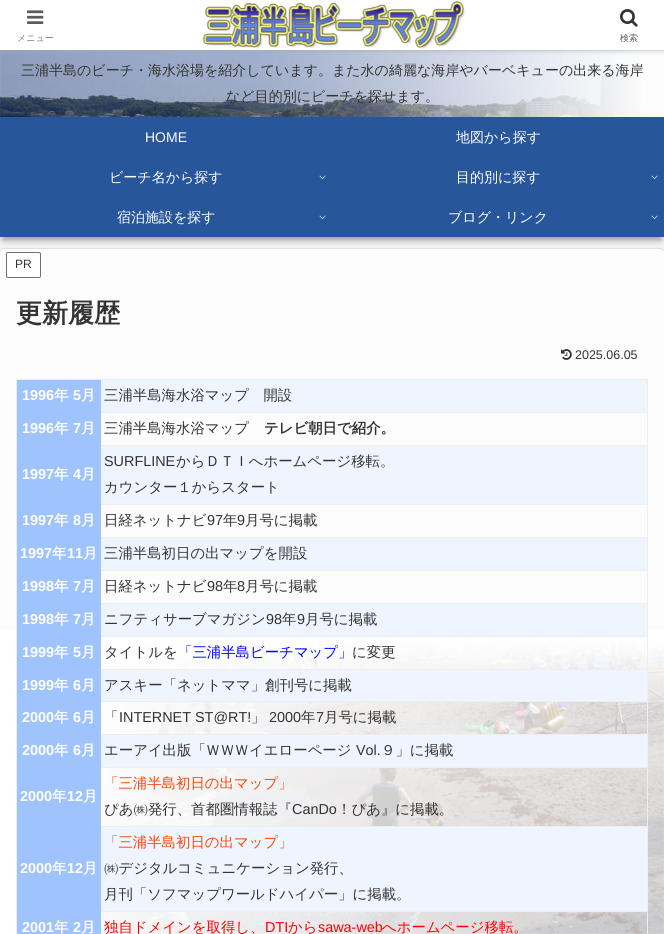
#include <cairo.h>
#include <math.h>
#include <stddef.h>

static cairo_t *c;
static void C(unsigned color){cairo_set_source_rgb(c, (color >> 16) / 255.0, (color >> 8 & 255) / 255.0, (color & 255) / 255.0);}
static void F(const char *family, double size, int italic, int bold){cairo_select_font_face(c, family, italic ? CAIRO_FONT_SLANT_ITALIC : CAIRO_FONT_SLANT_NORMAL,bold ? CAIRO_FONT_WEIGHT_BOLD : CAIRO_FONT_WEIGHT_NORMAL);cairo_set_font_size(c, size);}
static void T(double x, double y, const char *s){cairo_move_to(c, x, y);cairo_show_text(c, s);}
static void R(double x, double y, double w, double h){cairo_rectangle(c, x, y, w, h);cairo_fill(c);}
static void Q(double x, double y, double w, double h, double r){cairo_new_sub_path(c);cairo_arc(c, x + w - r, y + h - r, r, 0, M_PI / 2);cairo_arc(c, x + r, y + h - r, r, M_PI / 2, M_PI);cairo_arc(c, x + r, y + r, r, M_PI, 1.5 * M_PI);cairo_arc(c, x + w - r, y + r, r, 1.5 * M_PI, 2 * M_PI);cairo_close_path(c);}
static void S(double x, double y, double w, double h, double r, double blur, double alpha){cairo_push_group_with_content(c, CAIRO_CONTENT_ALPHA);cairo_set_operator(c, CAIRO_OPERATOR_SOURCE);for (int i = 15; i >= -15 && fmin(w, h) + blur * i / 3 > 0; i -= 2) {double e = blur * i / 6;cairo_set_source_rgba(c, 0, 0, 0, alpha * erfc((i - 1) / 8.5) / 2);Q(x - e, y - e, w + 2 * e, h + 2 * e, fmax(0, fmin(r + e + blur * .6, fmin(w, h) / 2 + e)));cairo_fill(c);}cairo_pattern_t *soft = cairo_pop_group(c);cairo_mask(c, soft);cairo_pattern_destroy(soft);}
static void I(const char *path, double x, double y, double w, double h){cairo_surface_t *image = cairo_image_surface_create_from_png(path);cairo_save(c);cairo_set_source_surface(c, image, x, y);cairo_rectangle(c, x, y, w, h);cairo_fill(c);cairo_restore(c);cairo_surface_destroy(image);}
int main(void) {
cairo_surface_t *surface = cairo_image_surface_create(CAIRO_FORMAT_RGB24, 664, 934);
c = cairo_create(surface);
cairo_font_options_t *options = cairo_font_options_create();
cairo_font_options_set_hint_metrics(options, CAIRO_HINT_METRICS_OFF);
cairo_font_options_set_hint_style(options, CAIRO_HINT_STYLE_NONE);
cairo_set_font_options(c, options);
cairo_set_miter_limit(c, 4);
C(0xf4f5f7);
cairo_paint(c);
I("1.png",0,630,664,304);
C(0x000000);
S(3,59,658,181,0,5,.18);
S(3,59,658,181,0,2.5,.24);
C(0xfcfcfd);
R(641,50,23,67);
I("5.png",0,50,641,67);
C(0xa9a9a9);
S(0,0,664,50,0,2.5,1);
C(0xffffff);
R(0,0,664,50);
I("2.png",27,10,17,14);
F("WenQuanYi Zen Hei Medium",9,0,0);
C(0x7c7c7c);
T(17,41,"メニュー");
I("3.png",202,1,263,48);
I("4.png",620,9,18,18);
C(0x5c5c5c);
T(620,41,"検索");
F("WenQuanYi Zen Hei Medium",14,0,0);
C(0x333333);
T(21,75,"三浦半島のビーチ・海水浴場を紹介しています。また水の綺麗な海岸やバーベキューの出来る海岸");
T(226,101,"など目的別にビーチを探せます。");
C(0x28569a);
R(0,117,664,120);
F("Liberation Sans",14,0,0);
C(0xffffff);
T(145,142,"HOME");
F("WenQuanYi Zen Hei Medium",14,0,0);
T(456,142,"地図から探す");
T(109,182,"ビーチ名から探す");
I("6.png",319,175,7,5);
T(456,182,"目的別に探す");
I("6.png",651,175,7,5);
T(117,222,"宿泊施設を探す");
I("6.png",319,215,7,5);
T(448,222,"ブログ・リンク");
I("6.png",651,215,7,5);
Q(-.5,248.5,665,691,4.5);
C(0xdfe0e1);
cairo_set_line_width(c,1);
cairo_stroke(c);
cairo_set_source_rgba(c,1,1,1,0.7);
Q(0,249,664,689,4);
cairo_fill(c);
C(0xffffff);
Q(6.5,252.5,34,25,1.5);
cairo_fill_preserve(c);
C(0x707070);
cairo_stroke(c);
F("Liberation Sans",12,0,0);
C(0x333333);
T(15,268,"PR");
F("WenQuanYi Zen Hei",26,0,1);
T(16,322,"更新履歴");
I("7.png",561,349,11,11);
F("Liberation Sans",12.5,0,0);
T(575,359,"2025.06.05");
C(0xeff5ff);
R(101,380,546,32);
C(0xeeeeee);
R(16,379,632,1);
R(16,412,1,522);
R(16,379,1,34);
R(100,412,548,1);
R(100,445,548,1);
R(100,504,548,1);
R(100,537,548,1);
R(100,570,548,1);
R(100,603,548,1);
R(100,636,548,1);
R(100,669,548,1);
R(100,701,548,1);
R(100,734,548,1);
R(100,767,548,1);
R(100,826,548,1);
R(100,911,548,1);
C(0x9fc3fd);
R(17,380,84,554);
F("Liberation Sans",14.4,0,1);
C(0xffffff);
T(22,400,"1996");
F("WenQuanYi Zen Hei",14.4,0,1);
T(54,400,"年");
F("Liberation Sans",14.4,0,1);
T(73,400,"5");
F("WenQuanYi Zen Hei",14.4,0,1);
T(81,400,"月");
C(0xeeeeee);
R(647,911,1,23);
R(647,826,1,86);
R(647,767,1,60);
R(647,734,1,34);
R(647,701,1,34);
R(647,669,1,33);
R(647,636,1,34);
R(647,603,1,34);
R(647,570,1,34);
R(647,537,1,34);
R(647,504,1,34);
R(647,445,1,60);
R(647,412,1,34);
R(647,379,1,34);
F("WenQuanYi Zen Hei Medium",14.4,0,0);
C(0x333333);
T(104,400,"三浦半島海水浴マップ　開設");
F("Liberation Sans",14.4,0,1);
C(0xffffff);
T(22,433,"1996");
F("WenQuanYi Zen Hei",14.4,0,1);
T(54,433,"年");
F("Liberation Sans",14.4,0,1);
T(73,433,"7");
F("WenQuanYi Zen Hei",14.4,0,1);
T(81,433,"月");
F("WenQuanYi Zen Hei Medium",14.4,0,0);
C(0x333333);
T(104,433,"三浦半島海水浴マップ");
F("WenQuanYi Zen Hei",14.4,0,1);
T(264,433,"テレビ朝日で紹介。");
C(0xeff5ff);
R(101,446,546,58);
F("Liberation Sans",14.4,0,1);
C(0xffffff);
T(22,479,"1997");
F("WenQuanYi Zen Hei",14.4,0,1);
T(54,479,"年");
F("Liberation Sans",14.4,0,1);
T(73,479,"4");
F("WenQuanYi Zen Hei",14.4,0,1);
T(81,479,"月");
F("Liberation Sans",14.4,0,0);
C(0x333333);
T(104,466,"SURFLINE");
F("WenQuanYi Zen Hei Medium",14.4,0,0);
T(176,466,"からＤＴＩへホームページ移転。");
T(104,492,"カウンター１からスタート");
F("Liberation Sans",14.4,0,1);
C(0xffffff);
T(22,525,"1997");
F("WenQuanYi Zen Hei",14.4,0,1);
T(54,525,"年");
F("Liberation Sans",14.4,0,1);
T(73,525,"8");
F("WenQuanYi Zen Hei",14.4,0,1);
T(81,525,"月");
F("WenQuanYi Zen Hei Medium",14.4,0,0);
C(0x333333);
T(104,525,"日経ネットナビ");
F("Liberation Sans",14.4,0,0);
T(207,525,"97");
F("WenQuanYi Zen Hei Medium",14.4,0,0);
T(223,525,"年");
F("Liberation Sans",14.4,0,0);
T(237,525,"9");
F("WenQuanYi Zen Hei Medium",14.4,0,0);
T(245,525,"月号に掲載");
C(0xeff5ff);
R(101,538,546,32);
F("Liberation Sans",14.4,0,1);
C(0xffffff);
T(20,558,"1997");
F("WenQuanYi Zen Hei",14.4,0,1);
T(52,558,"年");
F("Liberation Sans",14.4,0,1);
T(67,558,"11");
F("WenQuanYi Zen Hei",14.4,0,1);
T(83,558,"月");
F("WenQuanYi Zen Hei Medium",14.4,0,0);
C(0x333333);
T(104,558,"三浦半島初日の出マップを開設");
F("Liberation Sans",14.4,0,1);
C(0xffffff);
T(22,591,"1998");
F("WenQuanYi Zen Hei",14.4,0,1);
T(54,591,"年");
F("Liberation Sans",14.4,0,1);
T(73,591,"7");
F("WenQuanYi Zen Hei",14.4,0,1);
T(81,591,"月");
F("WenQuanYi Zen Hei Medium",14.4,0,0);
C(0x333333);
T(104,591,"日経ネットナビ");
F("Liberation Sans",14.4,0,0);
T(207,591,"98");
F("WenQuanYi Zen Hei Medium",14.4,0,0);
T(223,591,"年");
F("Liberation Sans",14.4,0,0);
T(237,591,"8");
F("WenQuanYi Zen Hei Medium",14.4,0,0);
T(245,591,"月号に掲載");
C(0xeff5ff);
R(101,604,546,32);
F("Liberation Sans",14.4,0,1);
C(0xffffff);
T(22,624,"1998");
F("WenQuanYi Zen Hei",14.4,0,1);
T(54,624,"年");
F("Liberation Sans",14.4,0,1);
T(73,624,"7");
F("WenQuanYi Zen Hei",14.4,0,1);
T(81,624,"月");
F("WenQuanYi Zen Hei Medium",14.4,0,0);
C(0x333333);
T(104,624,"ニフティサーブマガジン");
F("Liberation Sans",14.4,0,0);
T(266,624,"98");
F("WenQuanYi Zen Hei Medium",14.4,0,0);
T(282,624,"年");
F("Liberation Sans",14.4,0,0);
T(297,624,"9");
F("WenQuanYi Zen Hei Medium",14.4,0,0);
T(305,624,"月号に掲載");
F("Liberation Sans",14.4,0,1);
C(0xffffff);
T(22,657,"1999");
F("WenQuanYi Zen Hei",14.4,0,1);
T(54,657,"年");
F("Liberation Sans",14.4,0,1);
T(73,657,"5");
F("WenQuanYi Zen Hei",14.4,0,1);
T(81,657,"月");
F("WenQuanYi Zen Hei Medium",14.4,0,0);
C(0x333333);
T(104,657,"タイトルを");
C(0x0000ff);
T(178,657,"「三浦半島ビーチマップ」");
C(0x333333);
T(352,657,"に変更");
C(0xeff5ff);
R(101,670,546,31);
F("Liberation Sans",14.4,0,1);
C(0xffffff);
T(22,690,"1999");
F("WenQuanYi Zen Hei",14.4,0,1);
T(54,690,"年");
F("Liberation Sans",14.4,0,1);
T(73,690,"6");
F("WenQuanYi Zen Hei",14.4,0,1);
T(81,690,"月");
F("WenQuanYi Zen Hei Medium",14.4,0,0);
C(0x333333);
T(104,690,"アスキー「ネットママ」創刊号に掲載");
F("Liberation Sans",14.4,0,1);
C(0xffffff);
T(22,722,"2000");
F("WenQuanYi Zen Hei",14.4,0,1);
T(54,722,"年");
F("Liberation Sans",14.4,0,1);
T(73,722,"6");
F("WenQuanYi Zen Hei",14.4,0,1);
T(81,722,"月");
F("WenQuanYi Zen Hei Medium",14.4,0,0);
C(0x333333);
T(104,722,"「");
F("Liberation Sans",14.4,0,0);
T(119,722,"INTERNET ST@RT!");
F("WenQuanYi Zen Hei Medium",14.4,0,0);
T(251,722,"」");
F("Liberation Sans",14.4,0,0);
T(269,722,"2000");
F("WenQuanYi Zen Hei Medium",14.4,0,0);
T(301,722,"年");
F("Liberation Sans",14.4,0,0);
T(316,722,"7");
F("WenQuanYi Zen Hei Medium",14.4,0,0);
T(324,722,"月号に掲載");
C(0xeff5ff);
R(101,735,546,32);
F("Liberation Sans",14.4,0,1);
C(0xffffff);
T(22,755,"2000");
F("WenQuanYi Zen Hei",14.4,0,1);
T(54,755,"年");
F("Liberation Sans",14.4,0,1);
T(73,755,"6");
F("WenQuanYi Zen Hei",14.4,0,1);
T(81,755,"月");
F("WenQuanYi Zen Hei Medium",14.4,0,0);
C(0x333333);
T(104,755,"エーアイ出版「ＷＷＷイエローページ");
F("Liberation Sans",14.4,0,0);
T(356,755,"Vol.");
F("WenQuanYi Zen Hei Medium",14.4,0,0);
T(381,755,"９」に掲載");
F("Liberation Sans",14.4,0,1);
C(0xffffff);
T(20,801,"2000");
F("WenQuanYi Zen Hei",14.4,0,1);
T(52,801,"年");
F("Liberation Sans",14.4,0,1);
T(67,801,"12");
F("WenQuanYi Zen Hei",14.4,0,1);
T(83,801,"月");
F("WenQuanYi Zen Hei Medium",14.4,0,0);
C(0xff4500);
T(104,788,"「三浦半島初日の出マップ」");
C(0x333333);
T(104,814,"ぴあ㈱発行、首都圏情報誌『");
F("Liberation Sans",14.4,0,0);
T(292,814,"CanDo");
F("WenQuanYi Zen Hei Medium",14.4,0,0);
T(337,814,"！ぴあ』に掲載。");
C(0xeff5ff);
R(101,827,546,84);
F("Liberation Sans",14.4,0,1);
C(0xffffff);
T(20,873,"2000");
F("WenQuanYi Zen Hei",14.4,0,1);
T(52,873,"年");
F("Liberation Sans",14.4,0,1);
T(67,873,"12");
F("WenQuanYi Zen Hei",14.4,0,1);
T(83,873,"月");
F("WenQuanYi Zen Hei Medium",14.4,0,0);
C(0xff4500);
T(104,847,"「三浦半島初日の出マップ」");
C(0x333333);
T(104,873,"㈱デジタルコミュニケーション発行、");
T(104,899,"月刊「ソフマップワールドハイパー」に掲載。");
F("Liberation Sans",14.4,0,1);
C(0xffffff);
T(22,932,"2001");
F("WenQuanYi Zen Hei",14.4,0,1);
T(54,932,"年");
F("Liberation Sans",14.4,0,1);
T(73,932,"2");
F("WenQuanYi Zen Hei",14.4,0,1);
T(81,932,"月");
F("WenQuanYi Zen Hei Medium",14.4,0,0);
C(0xff0000);
T(104,932,"独自ドメインを取得し、");
F("Liberation Sans",14.4,0,0);
T(265,932,"DTI");
F("WenQuanYi Zen Hei Medium",14.4,0,0);
T(288,932,"から");
F("Liberation Sans",14.4,0,0);
T(318,932,"sawa-web");
F("WenQuanYi Zen Hei Medium",14.4,0,0);
T(382,932,"へホームページ移転。");
cairo_surface_write_to_png(surface, "o.png");
cairo_font_options_destroy(options);
cairo_destroy(c);
cairo_surface_destroy(surface);
return 0;
}
